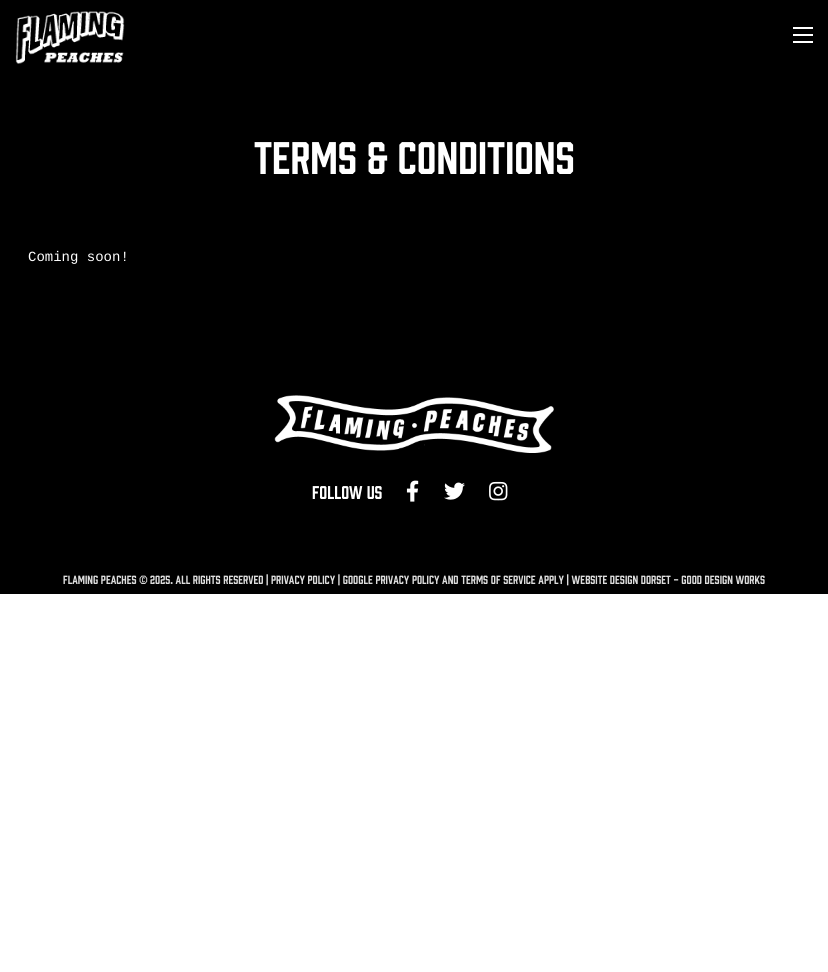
#include <cairo.h>
#include <math.h>
#include <stddef.h>

static cairo_t *c;
static void C(unsigned color){cairo_set_source_rgb(c, (color >> 16) / 255.0, (color >> 8 & 255) / 255.0, (color & 255) / 255.0);}
static void F(const char *family, double size, int italic, int bold){cairo_select_font_face(c, family, italic ? CAIRO_FONT_SLANT_ITALIC : CAIRO_FONT_SLANT_NORMAL,bold ? CAIRO_FONT_WEIGHT_BOLD : CAIRO_FONT_WEIGHT_NORMAL);cairo_set_font_size(c, size);}
static void T(double x, double y, const char *s){cairo_move_to(c, x, y);cairo_show_text(c, s);}
static void R(double x, double y, double w, double h){cairo_rectangle(c, x, y, w, h);cairo_fill(c);}
static void I(const char *path, double x, double y, double w, double h){cairo_surface_t *image = cairo_image_surface_create_from_png(path);cairo_save(c);cairo_set_source_surface(c, image, x, y);cairo_rectangle(c, x, y, w, h);cairo_fill(c);cairo_restore(c);cairo_surface_destroy(image);}
int main(void) {
cairo_surface_t *surface = cairo_image_surface_create(CAIRO_FORMAT_RGB24, 828, 972);
c = cairo_create(surface);
cairo_font_options_t *options = cairo_font_options_create();
cairo_font_options_set_hint_metrics(options, CAIRO_HINT_METRICS_OFF);
cairo_font_options_set_hint_style(options, CAIRO_HINT_STYLE_NONE);
cairo_set_font_options(c, options);
cairo_set_miter_limit(c, 4);
C(0xffffff);
cairo_paint(c);
C(0x000000);
R(0,0,828,594);
I("1.png",15,11,110,53);
C(0xffffff);
R(793,34,20,2);
R(793,27,20,2);
R(793,41,20,2);
F("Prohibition",42,0,0);
T(254,174,"TERMS & CONDITIONS");
F("Liberation Mono",14,0,0);
T(28,261,"Coming soon!");
I("2.png",274,395,280,58);
F("Prohibition",17,0,0);
T(312,499,"FOLLOW US");
I("3.png",406,480,13,22);
I("4.png",444,482,21,18);
I("5.png",489,481,19,20);
F("Prohibition",11,0,0);
C(0xdddddd);
T(63,584,"FLAMING PEACHES © 2025. ALL RIGHTS RESERVED | PRIVACY POLICY | GOOGLE PRIVACY POLICY AND TERMS OF SERVICE APPLY | WEBSITE DESIGN DORSET - GOOD DESIGN WORKS");
cairo_surface_write_to_png(surface, "o.png");
cairo_font_options_destroy(options);
cairo_destroy(c);
cairo_surface_destroy(surface);
return 0;
}
